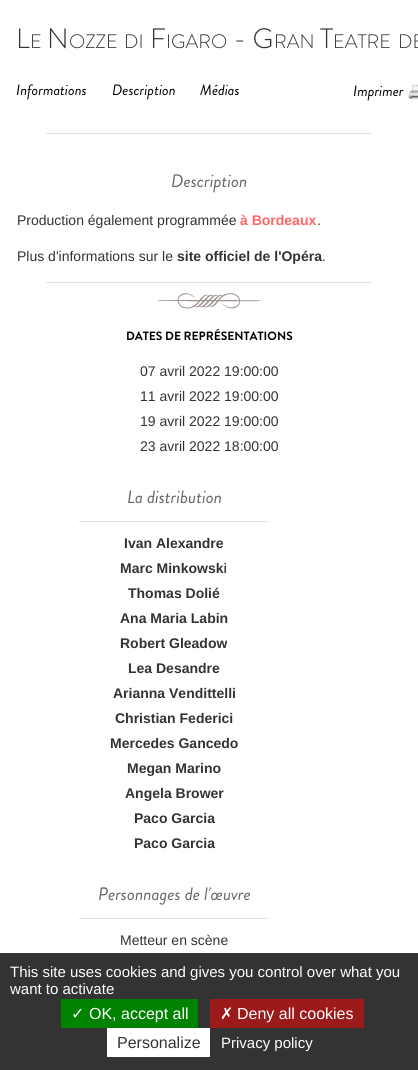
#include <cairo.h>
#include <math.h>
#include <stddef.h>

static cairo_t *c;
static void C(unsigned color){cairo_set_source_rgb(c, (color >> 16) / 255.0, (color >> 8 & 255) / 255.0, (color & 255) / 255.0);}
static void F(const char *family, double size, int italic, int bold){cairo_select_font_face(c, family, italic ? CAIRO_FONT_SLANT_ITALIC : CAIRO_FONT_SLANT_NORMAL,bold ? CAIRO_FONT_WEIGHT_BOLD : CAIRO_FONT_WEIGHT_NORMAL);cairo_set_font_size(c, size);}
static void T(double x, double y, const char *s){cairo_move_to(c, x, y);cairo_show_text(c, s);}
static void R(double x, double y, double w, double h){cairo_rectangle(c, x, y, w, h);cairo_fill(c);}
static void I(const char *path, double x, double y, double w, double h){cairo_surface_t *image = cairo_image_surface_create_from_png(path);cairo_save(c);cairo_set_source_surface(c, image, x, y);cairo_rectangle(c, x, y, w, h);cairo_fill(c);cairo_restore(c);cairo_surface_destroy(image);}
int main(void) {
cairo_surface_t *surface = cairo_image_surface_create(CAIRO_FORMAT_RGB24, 418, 1070);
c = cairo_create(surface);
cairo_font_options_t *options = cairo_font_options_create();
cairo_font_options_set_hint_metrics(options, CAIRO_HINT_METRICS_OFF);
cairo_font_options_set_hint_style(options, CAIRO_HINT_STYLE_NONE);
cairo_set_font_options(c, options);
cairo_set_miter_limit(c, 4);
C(0xffffff);
cairo_paint(c);
F("Brandon Grotesque Light",28,0,0);
C(0x333333);
T(16,48,"L");
F("Brandon Grotesque Light",19.5,0,0);
T(30,48,"E");
F("Brandon Grotesque Light",28,0,0);
T(47,48,"N");
F("Brandon Grotesque Light",19.5,0,0);
T(69,48,"OZZE");
T(124,48,"DI");
F("Brandon Grotesque Light",28,0,0);
T(150,48,"F");
F("Brandon Grotesque Light",19.5,0,0);
T(166,48,"IGARO");
F("Brandon Grotesque Light",28,0,0);
T(233,48,"- G");
F("Brandon Grotesque Light",19.5,0,0);
T(274,48,"RAN");
F("Brandon Grotesque Light",28,0,0);
T(320,48,"T");
F("Brandon Grotesque Light",19.5,0,0);
T(333,48,"EATRE");
T(398,48,"DE");
F("Brandon Grotesque",15,1,0);
C(0x000000);
T(16,95,"Informations");
T(112,95,"Description");
T(200,95,"Médias");
T(353,96,"Imprimer");
I("1.png",408,84,10,16);
C(0xe1e1e1);
R(46,133,326,1);
F("Brandon Grotesque",18,1,0);
C(0x666666);
T(171,187,"Description");
F("Liberation Sans",14,0,0);
C(0x333333);
T(17,225,"Production également programmée");
F("Liberation Sans",14,0,1);
C(0xff6666);
T(240,225,"à Bordeaux");
F("Liberation Sans",14,0,0);
C(0x333333);
T(317,225,".");
T(17,261,"Plus d'informations sur le");
F("Liberation Sans",14,0,1);
T(177,261,"site officiel de l'Opéra");
F("Liberation Sans",14,0,0);
T(322,261,".");
C(0xe1e1e1);
R(46,282,326,1);
I("2.png",158,293,102,16);
F("Brandon Grotesque",12,0,1);
C(0x000000);
T(126,340,"DATES DE REPRÉSENTATIONS");
F("Liberation Sans",14,0,0);
C(0x333333);
T(140,376,"07 avril 2022 19:00:00");
T(140,401,"11 avril 2022 19:00:00");
T(140,426,"19 avril 2022 19:00:00");
T(140,451,"23 avril 2022 18:00:00");
F("Brandon Grotesque",18,1,0);
C(0x666666);
T(127,503,"La distribution");
C(0xe1e1e1);
R(79,521,190,1);
F("Liberation Sans",14,0,1);
C(0x333333);
T(124,548,"Ivan Alexandre");
T(120,573,"Marc Minkowski");
T(128,598,"Thomas Dolié");
T(120,623,"Ana Maria Labin");
T(120,648,"Robert Gleadow");
T(128,673,"Lea Desandre");
T(113,698,"Arianna Vendittelli");
T(115,723,"Christian Federici");
T(110,748,"Mercedes Gancedo");
T(127,773,"Megan Marino");
T(125,798,"Angela Brower");
T(134,823,"Paco Garcia");
T(134,848,"Paco Garcia");
F("Brandon Grotesque",18,1,0);
C(0x666666);
T(98,900,"Personnages de l'œuvre");
C(0xe1e1e1);
R(79,918,190,1);
F("Liberation Sans",14,0,0);
C(0x333333);
T(120,945,"Metteur en scène");
R(0,953,418,117);
F("Liberation Sans",15,0,0);
C(0xffffff);
T(10,977,"This site uses cookies and gives you control over what you");
T(10,994,"want to activate");
C(0x008300);
R(61,999,137,29);
F("DejaVu Sans",16,0,0);
C(0xffffff);
T(71,1019,"✓");
F("Liberation Sans",16,0,0);
T(89,1019,"OK, accept all");
C(0x9c1a1a);
R(210,999,154,29);
F("DejaVu Sans",16,0,0);
C(0xffffff);
T(220,1019,"✗");
F("Liberation Sans",16,0,0);
T(237,1019,"Deny all cookies");
R(107,1028,103,29);
C(0x333333);
T(117,1048,"Personalize");
F("Liberation Sans",15,0,0);
C(0xffffff);
T(221,1048,"Privacy policy");
cairo_surface_write_to_png(surface, "o.png");
cairo_font_options_destroy(options);
cairo_destroy(c);
cairo_surface_destroy(surface);
return 0;
}
